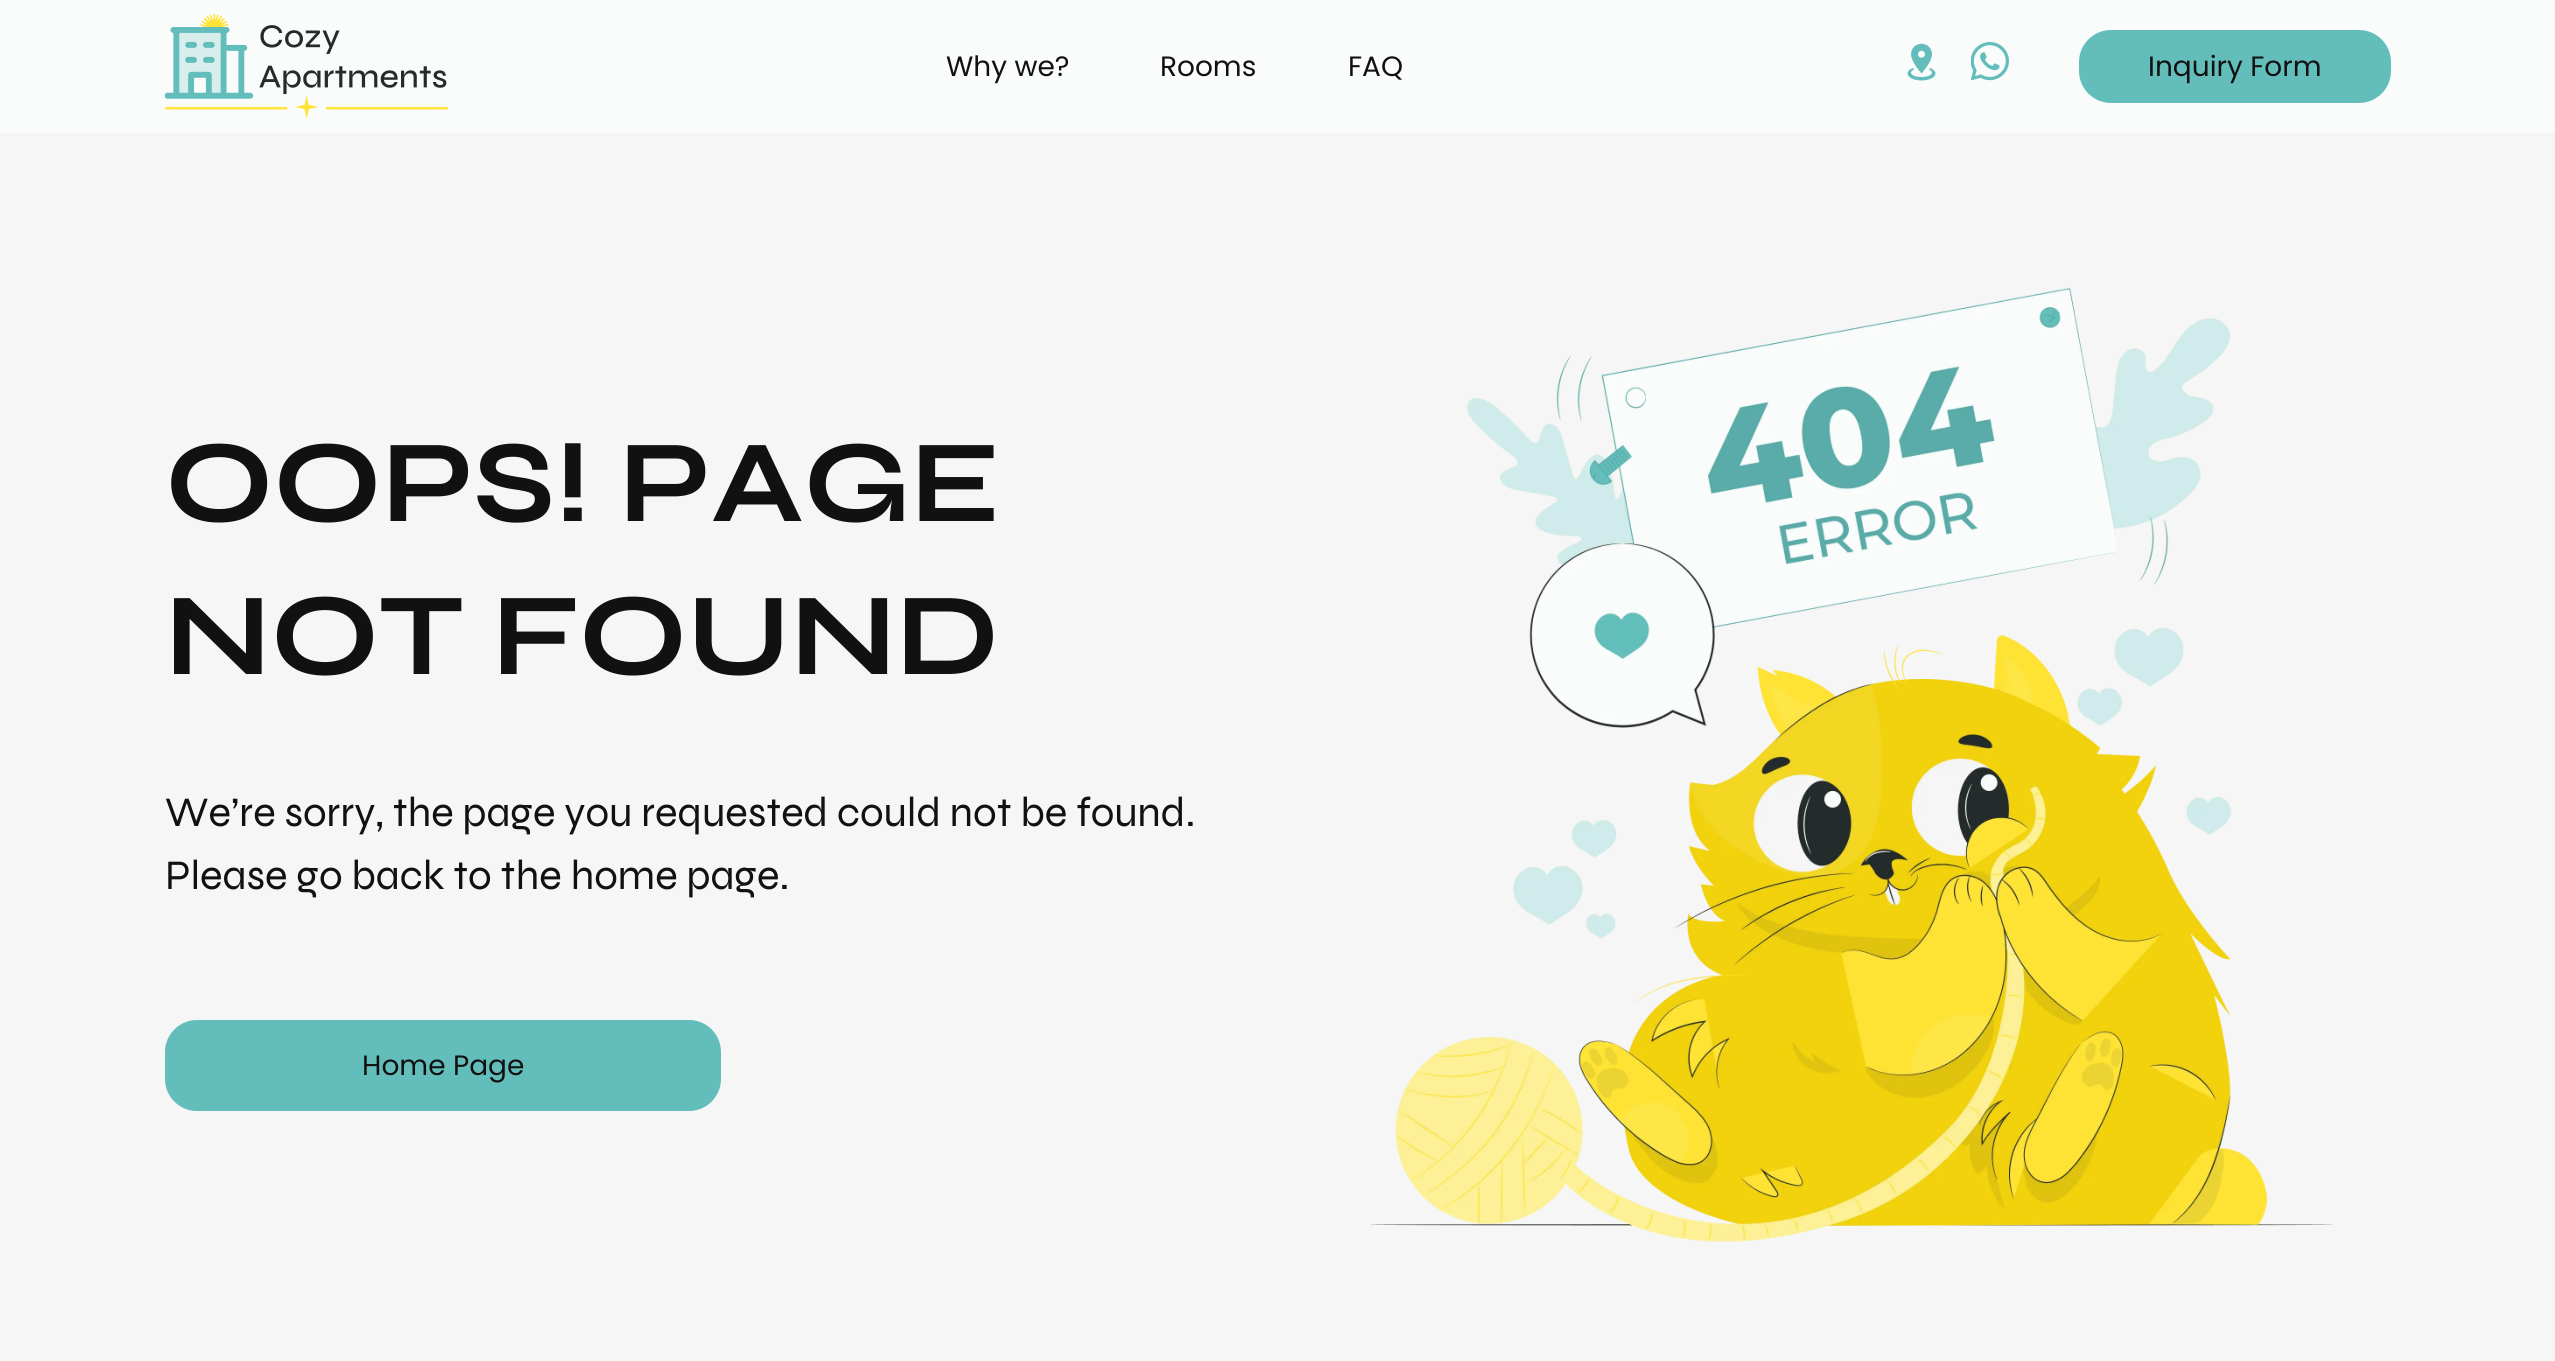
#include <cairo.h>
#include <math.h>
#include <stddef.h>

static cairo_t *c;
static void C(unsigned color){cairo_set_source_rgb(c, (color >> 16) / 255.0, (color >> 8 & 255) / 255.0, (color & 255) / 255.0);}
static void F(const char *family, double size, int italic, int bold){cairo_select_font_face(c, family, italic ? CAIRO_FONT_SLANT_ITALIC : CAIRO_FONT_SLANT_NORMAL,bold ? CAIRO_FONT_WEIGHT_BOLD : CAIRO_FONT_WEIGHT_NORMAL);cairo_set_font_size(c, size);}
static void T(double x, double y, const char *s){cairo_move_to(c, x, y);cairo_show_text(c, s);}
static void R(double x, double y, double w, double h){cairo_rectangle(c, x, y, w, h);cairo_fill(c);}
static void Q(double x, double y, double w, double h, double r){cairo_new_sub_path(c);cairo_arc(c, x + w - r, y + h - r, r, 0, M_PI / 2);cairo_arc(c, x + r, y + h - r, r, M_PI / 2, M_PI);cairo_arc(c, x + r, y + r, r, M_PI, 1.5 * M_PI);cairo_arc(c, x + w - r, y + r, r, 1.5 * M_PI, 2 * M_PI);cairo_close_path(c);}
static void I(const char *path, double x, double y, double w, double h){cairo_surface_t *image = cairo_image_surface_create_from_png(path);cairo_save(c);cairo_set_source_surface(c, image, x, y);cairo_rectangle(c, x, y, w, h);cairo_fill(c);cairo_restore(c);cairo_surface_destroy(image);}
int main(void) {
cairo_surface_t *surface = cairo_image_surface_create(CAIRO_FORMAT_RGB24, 2555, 1361);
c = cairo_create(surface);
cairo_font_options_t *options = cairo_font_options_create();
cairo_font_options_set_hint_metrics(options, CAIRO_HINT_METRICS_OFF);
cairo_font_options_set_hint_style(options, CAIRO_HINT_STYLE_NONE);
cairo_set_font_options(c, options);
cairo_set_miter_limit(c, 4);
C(0xf6f6f6);
cairo_paint(c);
C(0xfafcfc);
R(0,0,2555,133);
I("1.png",165,14,283,105);
F("Poppins",28,0,0);
C(0x111111);
T(946,76,"Why we?");
T(1160,76,"Rooms");
T(1348,76,"FAQ");
I("2.png",1907,43,29,38);
I("3.png",1971,42,38,39);
C(0x63bebb);
Q(2079,30,312,73,32);
cairo_fill(c);
C(0x111111);
T(2148,76,"Inquiry Form");
F("Syne",117.25,0,1);
T(165,521,"OOPS! PAGE");
T(165,674,"NOT FOUND");
F("Syne",42,0,0);
T(165,826,"We’re sorry, the page you requested could not be found.");
T(165,889,"Please go back to the home page.");
C(0x63bebb);
Q(165,1020,556,91,32);
cairo_fill(c);
F("Poppins",28,0,0);
C(0x111111);
T(362,1075,"Home Page");
I("4.png",1370,287,963,955);
cairo_surface_write_to_png(surface, "o.png");
cairo_font_options_destroy(options);
cairo_destroy(c);
cairo_surface_destroy(surface);
return 0;
}
